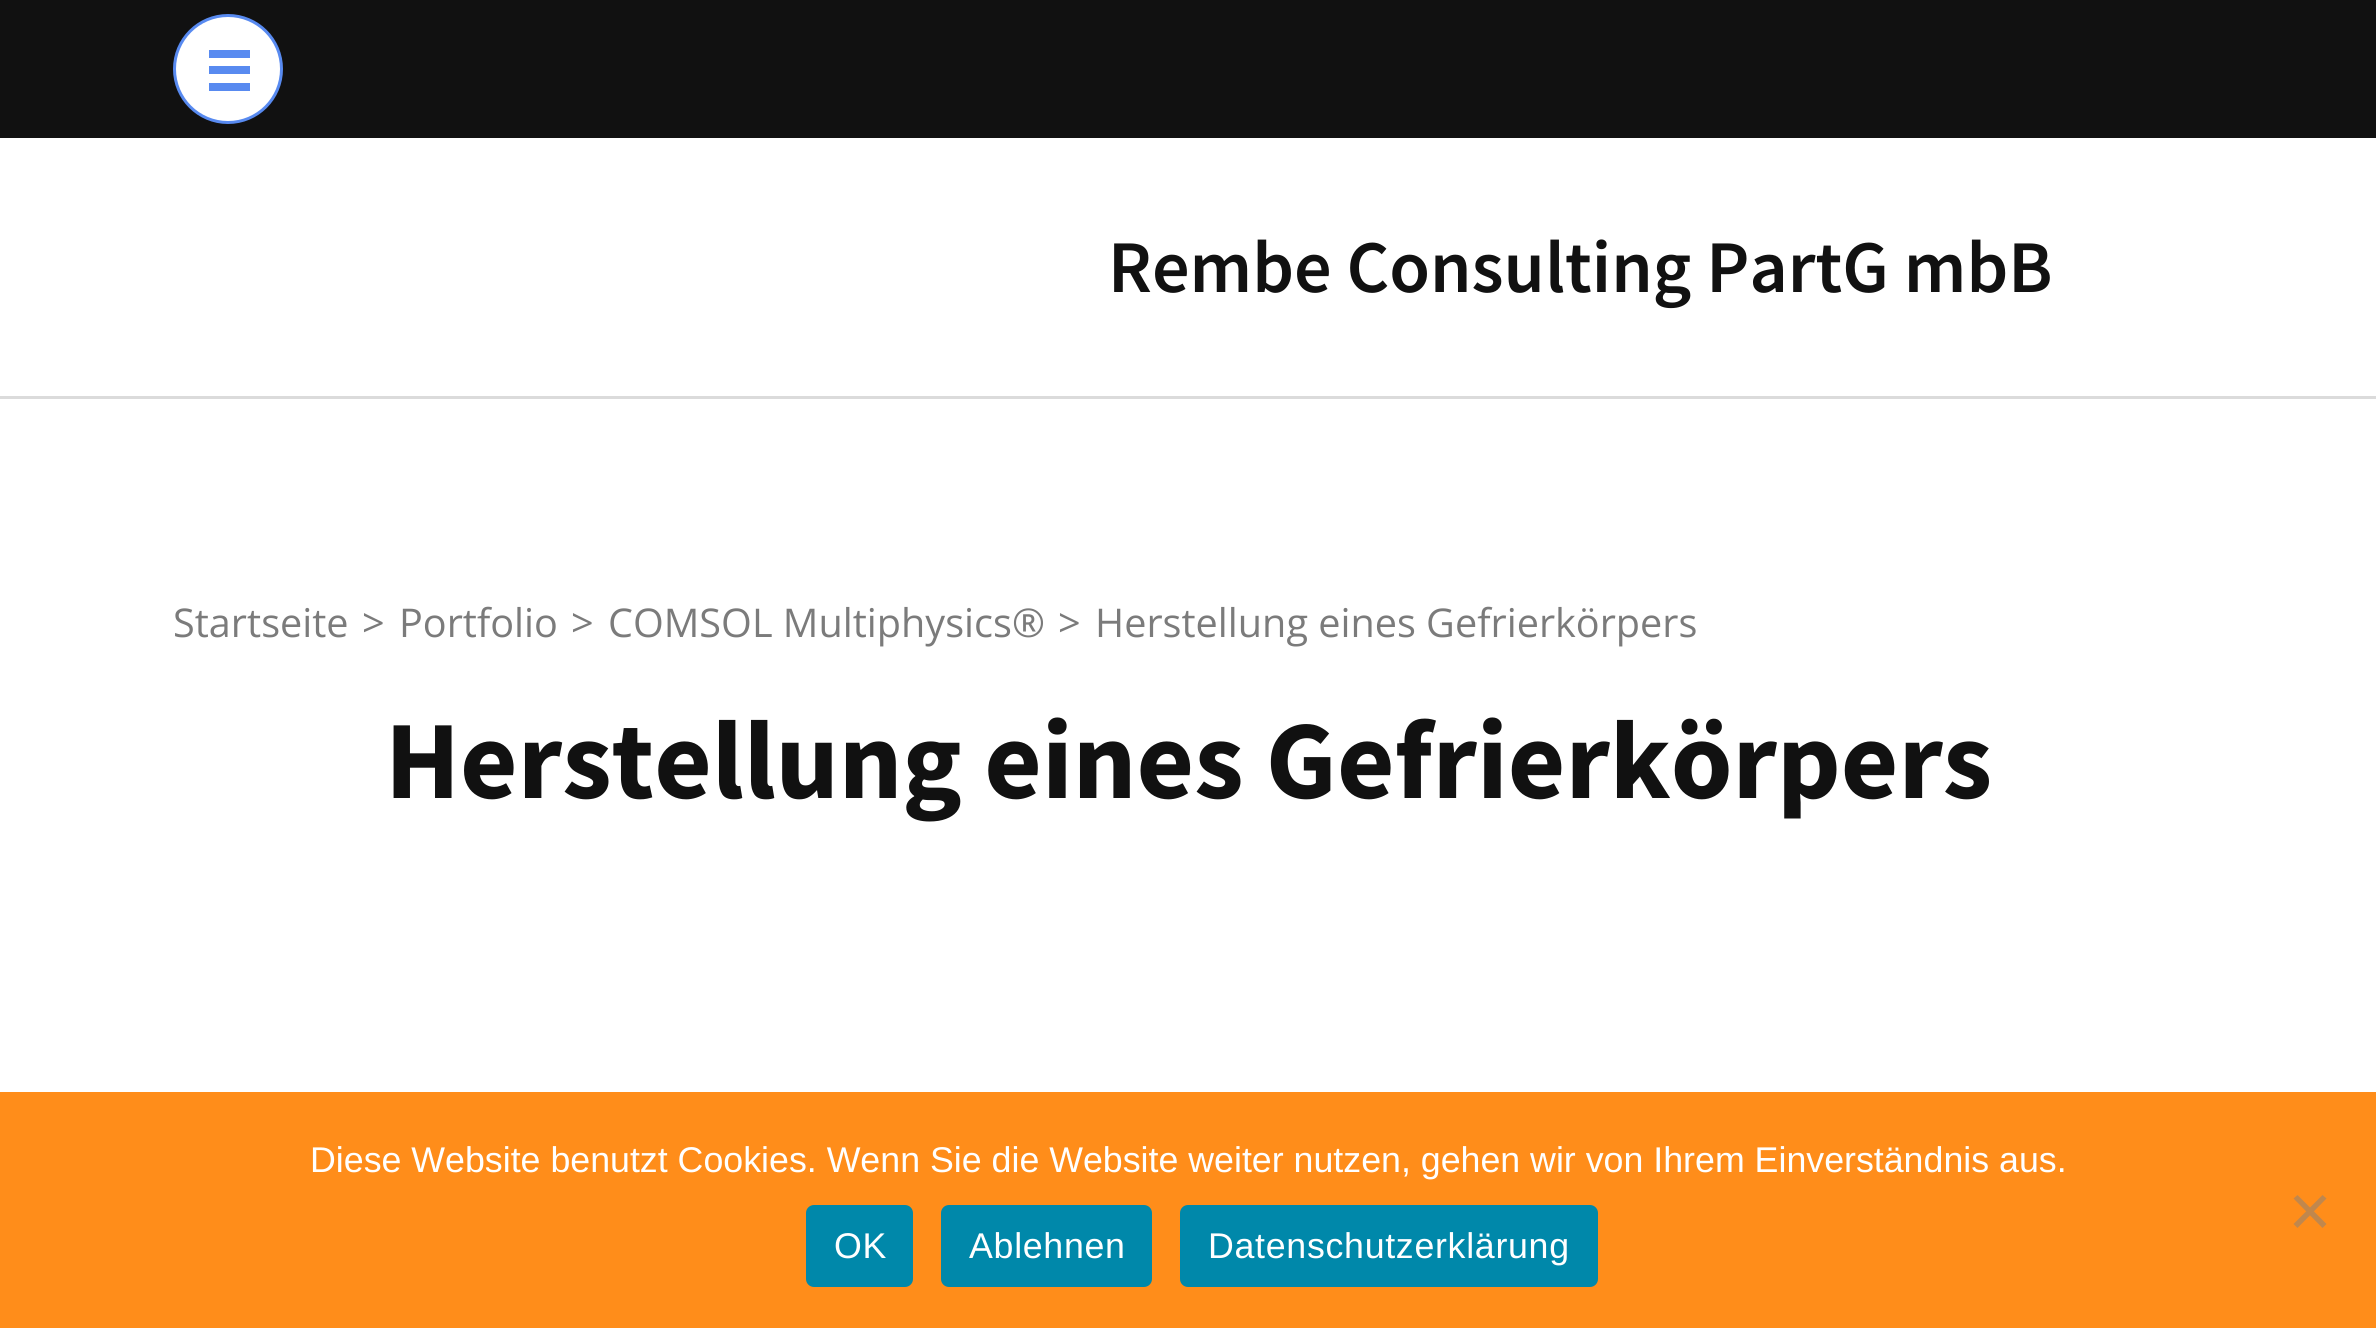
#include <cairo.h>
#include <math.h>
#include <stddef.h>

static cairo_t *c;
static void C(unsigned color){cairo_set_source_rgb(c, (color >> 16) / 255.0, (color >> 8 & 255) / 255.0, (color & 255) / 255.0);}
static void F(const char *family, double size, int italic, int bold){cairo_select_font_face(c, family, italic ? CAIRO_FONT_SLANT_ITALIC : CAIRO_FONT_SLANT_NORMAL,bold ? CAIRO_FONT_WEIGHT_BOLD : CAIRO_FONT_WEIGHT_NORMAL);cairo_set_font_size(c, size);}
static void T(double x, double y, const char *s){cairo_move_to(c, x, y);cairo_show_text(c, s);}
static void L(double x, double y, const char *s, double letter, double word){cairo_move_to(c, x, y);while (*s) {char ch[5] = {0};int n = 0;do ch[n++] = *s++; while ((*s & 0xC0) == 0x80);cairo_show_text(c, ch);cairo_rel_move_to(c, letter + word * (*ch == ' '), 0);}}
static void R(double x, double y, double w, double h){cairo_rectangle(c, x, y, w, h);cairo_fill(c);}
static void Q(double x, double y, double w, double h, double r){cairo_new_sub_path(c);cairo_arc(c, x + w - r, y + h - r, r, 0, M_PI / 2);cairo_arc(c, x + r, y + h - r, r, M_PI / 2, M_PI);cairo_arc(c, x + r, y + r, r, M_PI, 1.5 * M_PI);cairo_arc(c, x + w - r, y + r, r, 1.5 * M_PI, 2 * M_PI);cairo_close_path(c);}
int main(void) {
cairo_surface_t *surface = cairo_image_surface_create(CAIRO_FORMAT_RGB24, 2376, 1328);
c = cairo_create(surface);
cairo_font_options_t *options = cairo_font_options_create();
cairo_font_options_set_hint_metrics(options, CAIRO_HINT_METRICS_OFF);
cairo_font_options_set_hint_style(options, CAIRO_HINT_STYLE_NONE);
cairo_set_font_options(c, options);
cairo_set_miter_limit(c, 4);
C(0xffffff);
cairo_paint(c);
C(0x111111);
R(0,0,2376,138);
C(0xffffff);
cairo_arc(c,228,69,53.5,0,2 * M_PI);
cairo_fill_preserve(c);
C(0x588af0);
cairo_set_line_width(c,3);
cairo_stroke(c);
R(209,50,41,8);
R(209,66,41,8);
R(209,83,41,8);
C(0xdbdbdb);
R(0,396,2376,3);
F("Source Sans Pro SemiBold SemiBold",74.25,0,0);
C(0x111111);
T(1108,292,"Rembe Consulting PartG mbB");
F("Open Sans",39.6,0,0);
C(0x7b7b7b);
T(173,637,"Startseite");
T(362,637,">");
T(399,637,"Portfolio");
T(571,637,">");
T(608,637,"COMSOL Multiphysics®");
T(1058,637,">");
T(1095,637,"Herstellung eines Gefrierkörpers");
F("Source Sans Pro",111.4,0,1);
C(0x111111);
T(385,798,"Herstellung eines Gefrierkörpers");
C(0xff8d1a);
R(0,1092,2376,236);
F("Liberation Sans",35.75,0,0);
C(0xffffff);
T(310,1172,"Diese Website benutzt Cookies. Wenn Sie die Website weiter nutzen, gehen wir von Ihrem Einverständnis aus.");
C(0xc0874d);
cairo_new_path(c);
cairo_move_to(c,2322.5,1195);
cairo_line_to(c,2326.5,1198.5);
cairo_line_to(c,2297.5,1228);
cairo_line_to(c,2293.5,1224);
cairo_close_path(c);
cairo_fill(c);
cairo_new_path(c);
cairo_move_to(c,2293.5,1198.5);
cairo_line_to(c,2297.5,1195);
cairo_line_to(c,2326.5,1224);
cairo_line_to(c,2322.5,1228);
cairo_close_path(c);
cairo_fill(c);
C(0x0088aa);
Q(806,1205,107,82,8);
cairo_fill(c);
C(0xffffff);
L(834,1258,"OK",.7,0);
C(0x0088aa);
Q(941,1205,211,82,8);
cairo_fill(c);
C(0xffffff);
L(969,1258,"Ablehnen",.7,0);
C(0x0088aa);
Q(1180,1205,418,82,8);
cairo_fill(c);
C(0xffffff);
L(1208,1258,"Datenschutzerklärung",.7,0);
cairo_surface_write_to_png(surface, "o.png");
cairo_font_options_destroy(options);
cairo_destroy(c);
cairo_surface_destroy(surface);
return 0;
}
